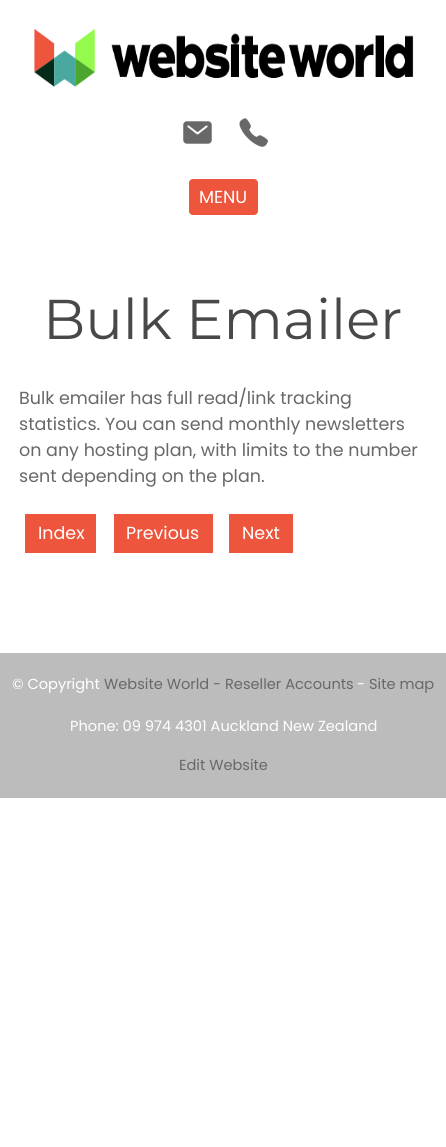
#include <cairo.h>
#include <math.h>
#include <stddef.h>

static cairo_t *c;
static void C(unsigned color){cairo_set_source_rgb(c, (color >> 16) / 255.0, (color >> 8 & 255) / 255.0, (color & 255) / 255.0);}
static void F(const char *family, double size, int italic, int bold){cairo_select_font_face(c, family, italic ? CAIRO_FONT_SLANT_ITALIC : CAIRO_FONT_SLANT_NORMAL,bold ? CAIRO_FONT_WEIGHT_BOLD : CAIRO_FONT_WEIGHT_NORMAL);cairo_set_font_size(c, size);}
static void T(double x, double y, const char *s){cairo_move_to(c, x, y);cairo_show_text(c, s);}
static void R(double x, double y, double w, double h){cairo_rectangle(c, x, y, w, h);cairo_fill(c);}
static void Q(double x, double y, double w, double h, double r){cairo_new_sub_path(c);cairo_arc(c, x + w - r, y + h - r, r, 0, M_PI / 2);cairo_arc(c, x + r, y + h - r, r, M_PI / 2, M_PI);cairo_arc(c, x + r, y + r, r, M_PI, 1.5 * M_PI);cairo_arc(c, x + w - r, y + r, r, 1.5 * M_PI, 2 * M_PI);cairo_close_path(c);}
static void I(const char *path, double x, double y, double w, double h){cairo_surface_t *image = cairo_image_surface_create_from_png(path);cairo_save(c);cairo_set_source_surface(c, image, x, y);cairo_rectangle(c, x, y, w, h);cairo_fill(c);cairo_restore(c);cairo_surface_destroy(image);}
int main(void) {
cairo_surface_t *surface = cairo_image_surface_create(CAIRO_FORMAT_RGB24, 446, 1147);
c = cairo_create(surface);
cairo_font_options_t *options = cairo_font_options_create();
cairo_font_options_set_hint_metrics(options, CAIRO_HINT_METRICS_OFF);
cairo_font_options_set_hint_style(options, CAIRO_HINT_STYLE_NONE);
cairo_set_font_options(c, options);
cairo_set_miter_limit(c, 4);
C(0xffffff);
cairo_paint(c);
I("1.png",34,28,380,59);
I("2.png",183,121,29,23);
I("3.png",239,118,29,29);
C(0xed553d);
Q(189,179,69,36,4);
cairo_fill(c);
F("Poppins",17.5,0,0);
C(0xffffff);
T(199,203,"MENU");
F("Montserrat",56,0,0);
C(0x484848);
T(43,339,"Bulk Emailer");
F("Poppins",17.5,0,0);
C(0x686868);
T(19,404,"Bulk emailer has full read/link tracking");
T(19,430,"statistics. You can send monthly newsletters");
T(19,456,"on any hosting plan, with limits to the number");
T(19,482,"sent depending on the plan.");
C(0xed553d);
R(25,514,71,39);
C(0xffffff);
T(38,539,"Index");
C(0xed553d);
R(114,514,99,39);
C(0xffffff);
T(126,539,"Previous");
C(0xed553d);
R(229,514,64,39);
C(0xffffff);
T(242,539,"Next");
C(0xbcbcbc);
R(0,653,446,145);
F("Poppins",14.6,0,0);
C(0xffffff);
T(12,689,"© Copyright");
C(0x686868);
T(104,689,"Website World - Reseller Accounts");
C(0xffffff);
T(357,689,"-");
C(0x686868);
T(369,689,"Site map");
C(0xffffff);
T(70,731,"Phone: 09 974 4301 Auckland New Zealand");
C(0x686868);
T(179,770,"Edit Website");
cairo_surface_write_to_png(surface, "o.png");
cairo_font_options_destroy(options);
cairo_destroy(c);
cairo_surface_destroy(surface);
return 0;
}
